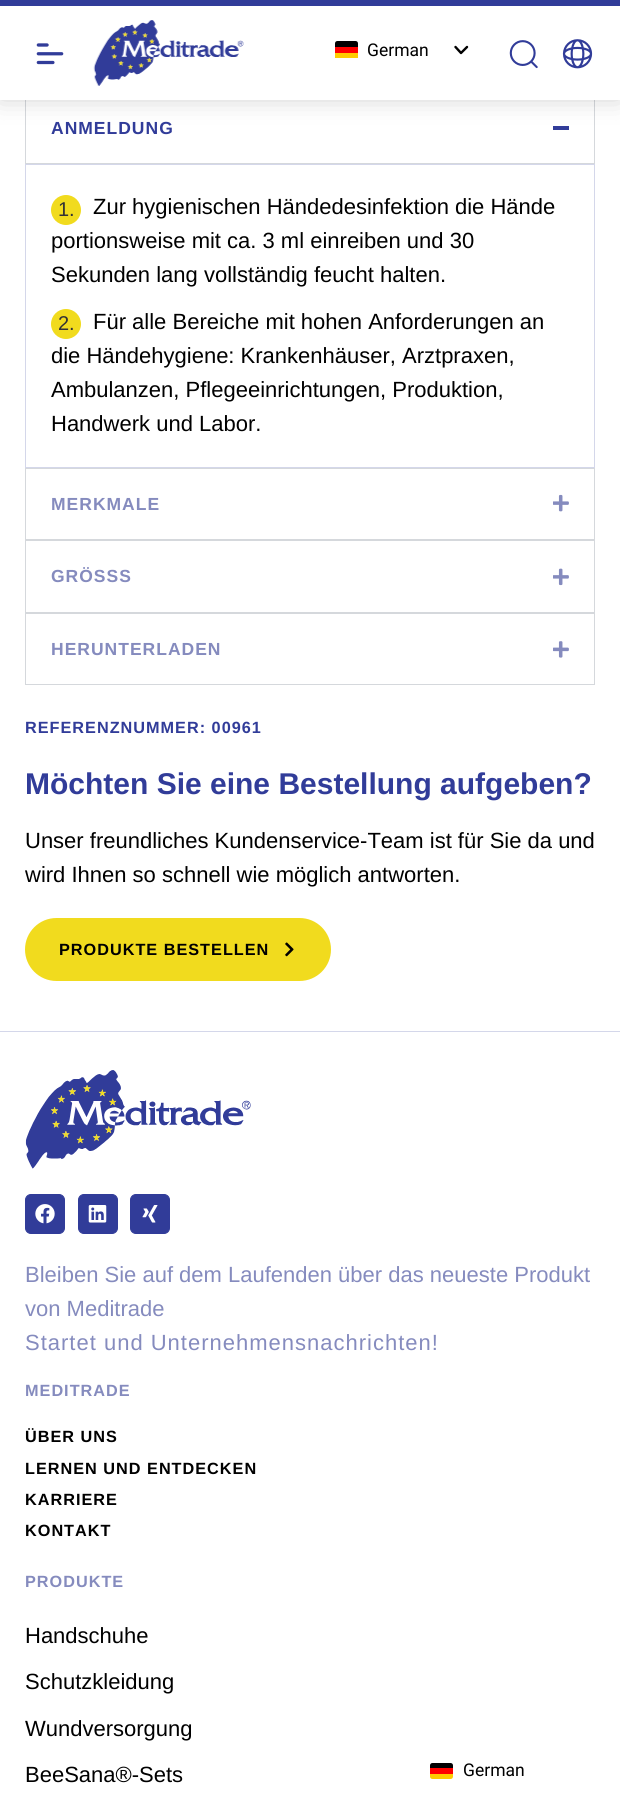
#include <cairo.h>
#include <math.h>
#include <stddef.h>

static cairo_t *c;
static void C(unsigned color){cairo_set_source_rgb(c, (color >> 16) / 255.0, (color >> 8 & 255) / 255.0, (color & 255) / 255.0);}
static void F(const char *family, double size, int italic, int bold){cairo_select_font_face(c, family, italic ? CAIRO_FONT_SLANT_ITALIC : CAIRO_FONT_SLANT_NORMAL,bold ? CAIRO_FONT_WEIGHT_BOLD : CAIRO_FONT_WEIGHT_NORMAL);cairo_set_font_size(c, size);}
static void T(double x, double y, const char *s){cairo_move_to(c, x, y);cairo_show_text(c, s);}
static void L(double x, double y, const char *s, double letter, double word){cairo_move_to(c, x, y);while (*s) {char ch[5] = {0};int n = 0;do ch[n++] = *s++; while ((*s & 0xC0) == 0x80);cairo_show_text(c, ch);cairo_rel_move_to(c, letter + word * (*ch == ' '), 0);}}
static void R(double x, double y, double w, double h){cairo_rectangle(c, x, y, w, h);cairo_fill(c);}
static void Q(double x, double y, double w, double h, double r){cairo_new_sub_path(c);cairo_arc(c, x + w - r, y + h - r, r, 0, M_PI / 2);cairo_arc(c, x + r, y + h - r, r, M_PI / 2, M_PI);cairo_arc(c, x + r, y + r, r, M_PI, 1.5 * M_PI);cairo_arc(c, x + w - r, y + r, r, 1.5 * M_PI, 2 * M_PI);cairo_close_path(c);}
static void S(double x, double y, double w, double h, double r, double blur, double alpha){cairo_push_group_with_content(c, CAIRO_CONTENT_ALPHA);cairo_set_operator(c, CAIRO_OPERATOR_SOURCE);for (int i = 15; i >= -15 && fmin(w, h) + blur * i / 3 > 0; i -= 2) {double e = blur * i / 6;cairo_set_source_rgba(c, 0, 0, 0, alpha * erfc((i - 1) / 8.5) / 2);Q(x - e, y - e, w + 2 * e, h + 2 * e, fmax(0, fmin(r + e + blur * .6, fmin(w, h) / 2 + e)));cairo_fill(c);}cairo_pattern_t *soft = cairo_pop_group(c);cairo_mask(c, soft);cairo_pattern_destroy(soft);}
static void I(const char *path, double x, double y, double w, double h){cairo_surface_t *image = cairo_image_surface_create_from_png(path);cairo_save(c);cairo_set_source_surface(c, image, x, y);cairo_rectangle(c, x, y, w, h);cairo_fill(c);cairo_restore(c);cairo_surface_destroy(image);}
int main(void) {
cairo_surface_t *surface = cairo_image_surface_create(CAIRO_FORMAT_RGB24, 620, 1805);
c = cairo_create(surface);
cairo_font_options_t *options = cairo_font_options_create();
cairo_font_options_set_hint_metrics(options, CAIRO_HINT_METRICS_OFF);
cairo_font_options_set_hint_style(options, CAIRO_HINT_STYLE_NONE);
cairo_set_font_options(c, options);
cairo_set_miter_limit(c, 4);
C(0xffffff);
cairo_paint(c);
cairo_rectangle(c,25.5,91.5,569,72);
C(0xd5d8dc);
cairo_set_line_width(c,1);
cairo_stroke(c);
C(0x313c99);
R(553,126,16,4);
C(0x000000);
S(0,-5,620,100,0,14,.24);
C(0xffffff);
R(0,6,620,94);
C(0x313c99);
R(0,0,620,6);
I("1.png",36,43,28,22);
I("2.png",93,20,151,66);
C(0xffcc00);
R(335,53,23,5);
C(0x000001);
cairo_new_path(c);
cairo_move_to(c,337.5,41);
cairo_line_to(c,355.5,41);
cairo_curve_to(c,357,41,358,42,358,43.5);
cairo_line_to(c,358,47);
cairo_line_to(c,335,47);
cairo_line_to(c,335,43.5);
cairo_curve_to(c,335,42,336,41,337.5,41);
cairo_close_path(c);
cairo_fill(c);
C(0xff0000);
R(335,47,23,6);
F("Roboto",17.5,0,0);
C(0x000000);
T(367,56,"German");
cairo_new_path(c);
cairo_move_to(c,455.5,47);
cairo_line_to(c,461,53);
cairo_line_to(c,467,47);
cairo_set_line_width(c,2.4);
cairo_set_line_cap(c,CAIRO_LINE_CAP_ROUND);
cairo_set_line_join(c,CAIRO_LINE_JOIN_ROUND);
cairo_stroke(c);
I("3.png",509,40,29,29);
I("4.png",562,39,31,30);
F("Liberation Sans",17.5,0,1);
C(0x313c99);
L(51,134,"ANMELDUNG",1,0);
cairo_rectangle(c,25.5,164.5,569,303);
C(0xd4d7ea);
cairo_set_line_width(c,1);
cairo_set_line_cap(c,CAIRO_LINE_CAP_BUTT);
cairo_set_line_join(c,CAIRO_LINE_JOIN_MITER);
cairo_stroke(c);
C(0xf1db1e);
cairo_arc(c,66,210,15,0,2 * M_PI);
cairo_fill(c);
F("Liberation Sans",20,0,0);
C(0x313135);
T(58,216,"1.");
F("Liberation Sans",22,0,0);
C(0x000000);
T(93,214,"Zur hygienischen Händedesinfektion die Hände");
T(51,248,"portionsweise mit ca. 3 ml einreiben und 30");
T(51,282,"Sekunden lang vollständig feucht halten.");
C(0xf1db1e);
cairo_new_path(c);
cairo_arc(c,66,324,15,0,2 * M_PI);
cairo_fill(c);
F("Liberation Sans",20,0,0);
C(0x313135);
T(58,330,"2.");
F("Liberation Sans",22,0,0);
C(0x000000);
T(93,329,"Für alle Bereiche mit hohen Anforderungen an");
T(51,363,"die Händehygiene: Krankenhäuser, Arztpraxen,");
T(51,397,"Ambulanzen, Pflegeeinrichtungen, Produktion,");
T(51,431,"Handwerk und Labor.");
cairo_rectangle(c,25.5,468.5,569,71);
C(0xd5d8dc);
cairo_stroke(c);
F("Liberation Sans",17.5,0,1);
C(0x858bbe);
L(51,510,"MERKMALE",1,0);
I("5.png",553,494,16,18);
cairo_rectangle(c,25.5,540.5,569,72);
C(0xd5d8dc);
cairo_stroke(c);
C(0x858bbe);
L(51,582,"GRÖSSS",1,0);
I("6.png",553,568,16,18);
cairo_rectangle(c,25.5,613.5,569,71);
C(0xd5d8dc);
cairo_stroke(c);
C(0x858bbe);
L(51,655,"HERUNTERLADEN",1,0);
I("7.png",553,641,16,17);
F("Liberation Sans",16.25,0,1);
C(0x313c99);
L(25,733,"REFERENZNUMMER: 00961",1,0);
F("Liberation Sans",30,0,1);
T(25,794,"Möchten Sie eine Bestellung aufgeben?");
F("Liberation Sans",22,0,0);
C(0x000000);
T(25,848,"Unser freundliches Kundenservice-Team ist für Sie da und");
T(25,882,"wird Ihnen so schnell wie möglich antworten.");
C(0xf1db1e);
Q(26.5,919.5,303,60,30);
cairo_fill_preserve(c);
cairo_set_line_width(c,3);
cairo_stroke(c);
F("Liberation Sans",16.25,0,1);
C(0x000000);
L(59,955,"PRODUKTE BESTELLEN",1,0);
I("8.png",285,942,9,15);
C(0xd4d7ea);
R(0,1031,620,1);
I("9.png",25,1070,226,99);
C(0x313c99);
Q(25.5,1194.5,39,39,5.5);
cairo_fill_preserve(c);
cairo_set_line_width(c,1);
cairo_stroke(c);
I("10.png",35,1204,20,20);
Q(78.5,1194.5,39,39,5.5);
cairo_fill_preserve(c);
cairo_stroke(c);
I("11.png",88,1205,19,18);
Q(130.5,1194.5,39,39,5.5);
cairo_fill_preserve(c);
cairo_stroke(c);
I("12.png",142,1205,16,18);
F("Liberation Sans",22,0,0);
C(0x858bbe);
T(25,1282,"Bleiben Sie auf dem Laufenden über das neueste Produkt");
T(25,1316,"von Meditrade");
L(25,1350,"Startet und Unternehmensnachrichten!",1,0);
F("Liberation Sans",16.25,0,1);
L(25,1396,"MEDITRADE",1,0);
C(0x000000);
L(25,1442,"ÜBER UNS",1,0);
L(25,1474,"LERNEN UND ENTDECKEN",1,0);
L(25,1505,"KARRIERE",1,0);
L(25,1536,"KONTAKT",1,0);
C(0x858bbe);
L(25,1587,"PRODUKTE",1,0);
F("Liberation Sans",22,0,0);
C(0x000000);
T(25,1643,"Handschuhe");
T(25,1689,"Schutzkleidung");
T(25,1736,"Wundversorgung");
T(25,1782,"BeeSana®-Sets");
C(0xffcc00);
cairo_new_path(c);
cairo_move_to(c,430,1774);
cairo_line_to(c,453,1774);
cairo_line_to(c,453,1776.5);
cairo_curve_to(c,453,1778,452,1779,450.5,1779);
cairo_line_to(c,432.5,1779);
cairo_curve_to(c,431,1779,430,1778,430,1776.5);
cairo_close_path(c);
cairo_fill(c);
C(0x000001);
cairo_new_path(c);
cairo_move_to(c,432.5,1763);
cairo_line_to(c,450.5,1763);
cairo_curve_to(c,452,1763,453,1764,453,1765.5);
cairo_line_to(c,453,1768);
cairo_line_to(c,430,1768);
cairo_line_to(c,430,1765.5);
cairo_curve_to(c,430,1764,431,1763,432.5,1763);
cairo_close_path(c);
cairo_fill(c);
C(0xff0000);
R(430,1768,23,6);
F("Roboto",17.5,0,0);
C(0x000000);
T(463,1776,"German");
cairo_surface_write_to_png(surface, "o.png");
cairo_font_options_destroy(options);
cairo_destroy(c);
cairo_surface_destroy(surface);
return 0;
}
